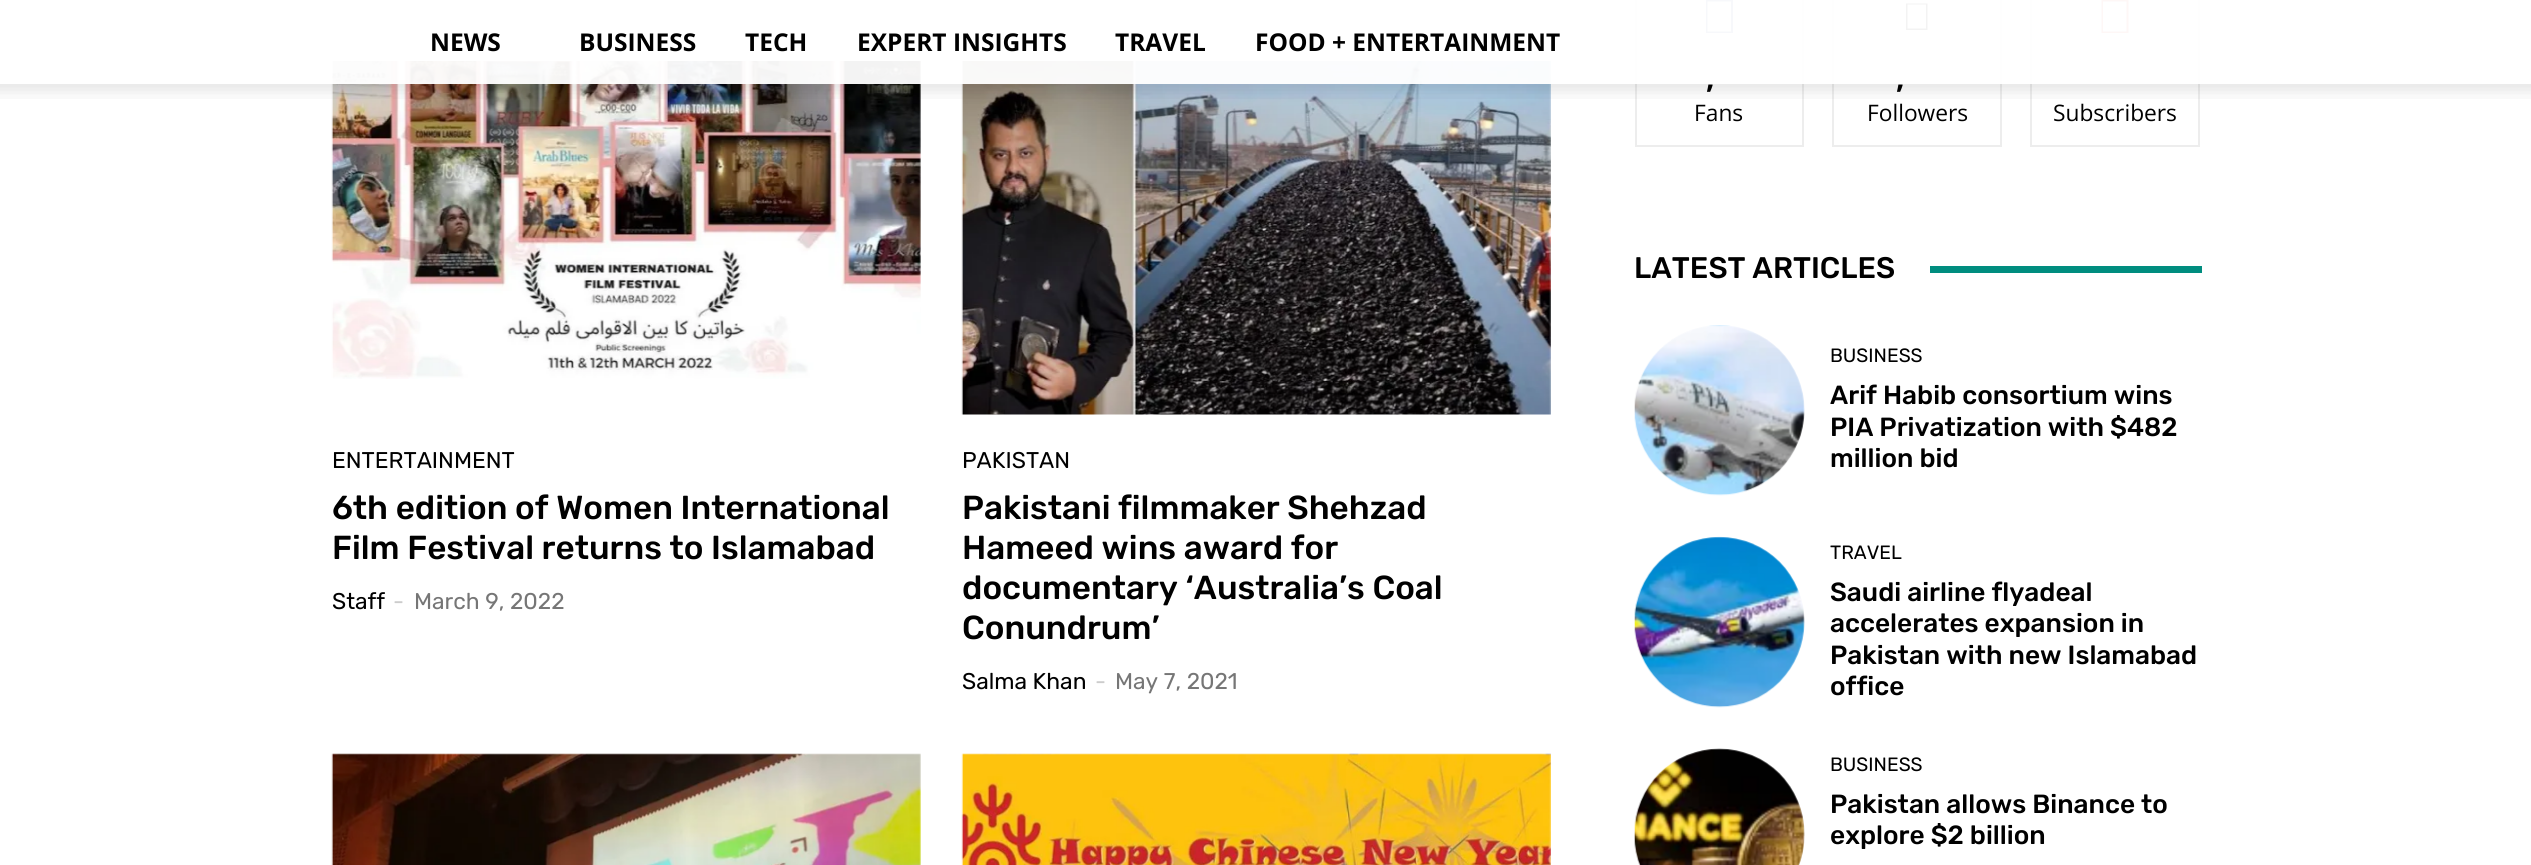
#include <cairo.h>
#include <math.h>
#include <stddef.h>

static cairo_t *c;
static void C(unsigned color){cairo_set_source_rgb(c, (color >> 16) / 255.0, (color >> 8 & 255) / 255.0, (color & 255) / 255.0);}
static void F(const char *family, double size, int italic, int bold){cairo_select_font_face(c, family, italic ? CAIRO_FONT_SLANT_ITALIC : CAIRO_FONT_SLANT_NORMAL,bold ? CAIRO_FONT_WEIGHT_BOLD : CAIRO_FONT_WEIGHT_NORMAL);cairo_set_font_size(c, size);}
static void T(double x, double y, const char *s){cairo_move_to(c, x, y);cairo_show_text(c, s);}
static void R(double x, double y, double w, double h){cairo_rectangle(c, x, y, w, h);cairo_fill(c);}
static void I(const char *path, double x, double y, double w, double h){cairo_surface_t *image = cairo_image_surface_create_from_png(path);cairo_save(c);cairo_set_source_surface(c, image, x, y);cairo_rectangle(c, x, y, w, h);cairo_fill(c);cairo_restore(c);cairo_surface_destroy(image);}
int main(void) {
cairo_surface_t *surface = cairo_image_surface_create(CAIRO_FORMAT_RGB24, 2531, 865);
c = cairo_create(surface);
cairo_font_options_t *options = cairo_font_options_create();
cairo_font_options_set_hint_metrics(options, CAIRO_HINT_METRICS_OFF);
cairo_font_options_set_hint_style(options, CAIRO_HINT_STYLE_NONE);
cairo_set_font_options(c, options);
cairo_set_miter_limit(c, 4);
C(0xffffff);
cairo_paint(c);
I("2.png",331,61,590,318);
I("3.png",961,61,590,354);
cairo_rectangle(c,1636,-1,167,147);
C(0xededed);
cairo_stroke(c);
C(0x516eab);
cairo_new_path(c);
cairo_move_to(c,1706,-.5);
cairo_line_to(c,1733,-.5);
cairo_line_to(c,1733,33);
cairo_line_to(c,1706,33);
cairo_close_path(c);
cairo_move_to(c,1707.5,1.5);
cairo_line_to(c,1707.5,31.5);
cairo_line_to(c,1731,31.5);
cairo_line_to(c,1731,1.5);
cairo_close_path(c);
cairo_fill(c);
cairo_rectangle(c,1833,-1,168,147);
C(0xededed);
cairo_stroke(c);
C(0x000000);
cairo_new_path(c);
cairo_move_to(c,1906,3.5);
cairo_line_to(c,1927.5,3.5);
cairo_line_to(c,1927.5,30);
cairo_line_to(c,1906,30);
cairo_close_path(c);
cairo_move_to(c,1907.5,4.5);
cairo_line_to(c,1907.5,28.5);
cairo_line_to(c,1926,28.5);
cairo_line_to(c,1926,4.5);
cairo_close_path(c);
cairo_fill(c);
cairo_rectangle(c,2031,-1,168,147);
C(0xededed);
cairo_stroke(c);
C(0xe14e42);
cairo_new_path(c);
cairo_move_to(c,2101.5,-.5);
cairo_line_to(c,2128.5,-.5);
cairo_line_to(c,2128.5,33);
cairo_line_to(c,2101.5,33);
cairo_close_path(c);
cairo_move_to(c,2103,1.5);
cairo_line_to(c,2103,31.5);
cairo_line_to(c,2126.5,31.5);
cairo_line_to(c,2126.5,1.5);
cairo_close_path(c);
cairo_fill(c);
cairo_set_source_rgba(c,1,1,1,0.95);
R(331,0,1869,84);
F("Open Sans",24.5,0,1);
C(0x000000);
T(430,51,"NEWS");
T(579,51,"BUSINESS");
T(745,51,"TECH");
T(857,51,"EXPERT INSIGHTS");
T(1115,51,"TRAVEL");
T(1255,51,"FOOD + ENTERTAINMENT");
F("Open Sans",29.75,0,1);
T(1706,88,",");
T(1896,88,",");
I("1.png",0,84,2531,15);
F("Rubik",22.75,0,0);
T(332,468,"ENTERTAINMENT");
F("Rubik Medium",33.25,0,0);
T(332,519,"6th edition of Women International");
T(332,559,"Film Festival returns to Islamabad");
F("Rubik",22.75,0,0);
T(332,609,"Staff");
C(0xcccccc);
T(393,609,"-");
C(0x767676);
T(414,609,"March 9, 2022");
C(0x000000);
T(962,468,"PAKISTAN");
F("Rubik Medium",33.25,0,0);
T(962,519,"Pakistani filmmaker Shehzad");
T(962,559,"Hameed wins award for");
T(962,599,"documentary ‘Australia’s Coal");
T(962,639,"Conundrum’");
F("Rubik",22.75,0,0);
T(962,689,"Salma Khan");
C(0xcccccc);
T(1095,689,"-");
C(0x767676);
T(1115,689,"May 7, 2021");
I("4.png",331,753,590,112);
I("5.png",961,753,590,112);
F("Open Sans",22.75,0,0);
C(0x000000);
T(1694,121,"Fans");
T(1867,121,"Followers");
T(2053,121,"Subscribers");
F("Rubik Medium",29.75,0,0);
T(1634,278,"LATEST ARTICLES");
C(0x008d7f);
R(1930,266,272,7);
I("6.png",1634,325,171,171);
F("Rubik",19.25,0,0);
C(0x000000);
T(1830,362,"BUSINESS");
F("Rubik Medium",26.25,0,0);
T(1830,404,"Arif Habib consortium wins");
T(1830,436,"PIA Privatization with $482");
T(1830,467,"million bid");
I("7.png",1634,536,171,172);
F("Rubik",19.25,0,0);
T(1830,559,"TRAVEL");
F("Rubik Medium",26.25,0,0);
T(1830,601,"Saudi airline flyadeal");
T(1830,632,"accelerates expansion in");
T(1830,664,"Pakistan with new Islamabad");
T(1830,695,"office");
I("8.png",1634,748,171,117);
F("Rubik",19.25,0,0);
T(1830,771,"BUSINESS");
F("Rubik Medium",26.25,0,0);
T(1830,813,"Pakistan allows Binance to");
T(1830,844,"explore $2 billion");
cairo_surface_write_to_png(surface, "o.png");
cairo_font_options_destroy(options);
cairo_destroy(c);
cairo_surface_destroy(surface);
return 0;
}
